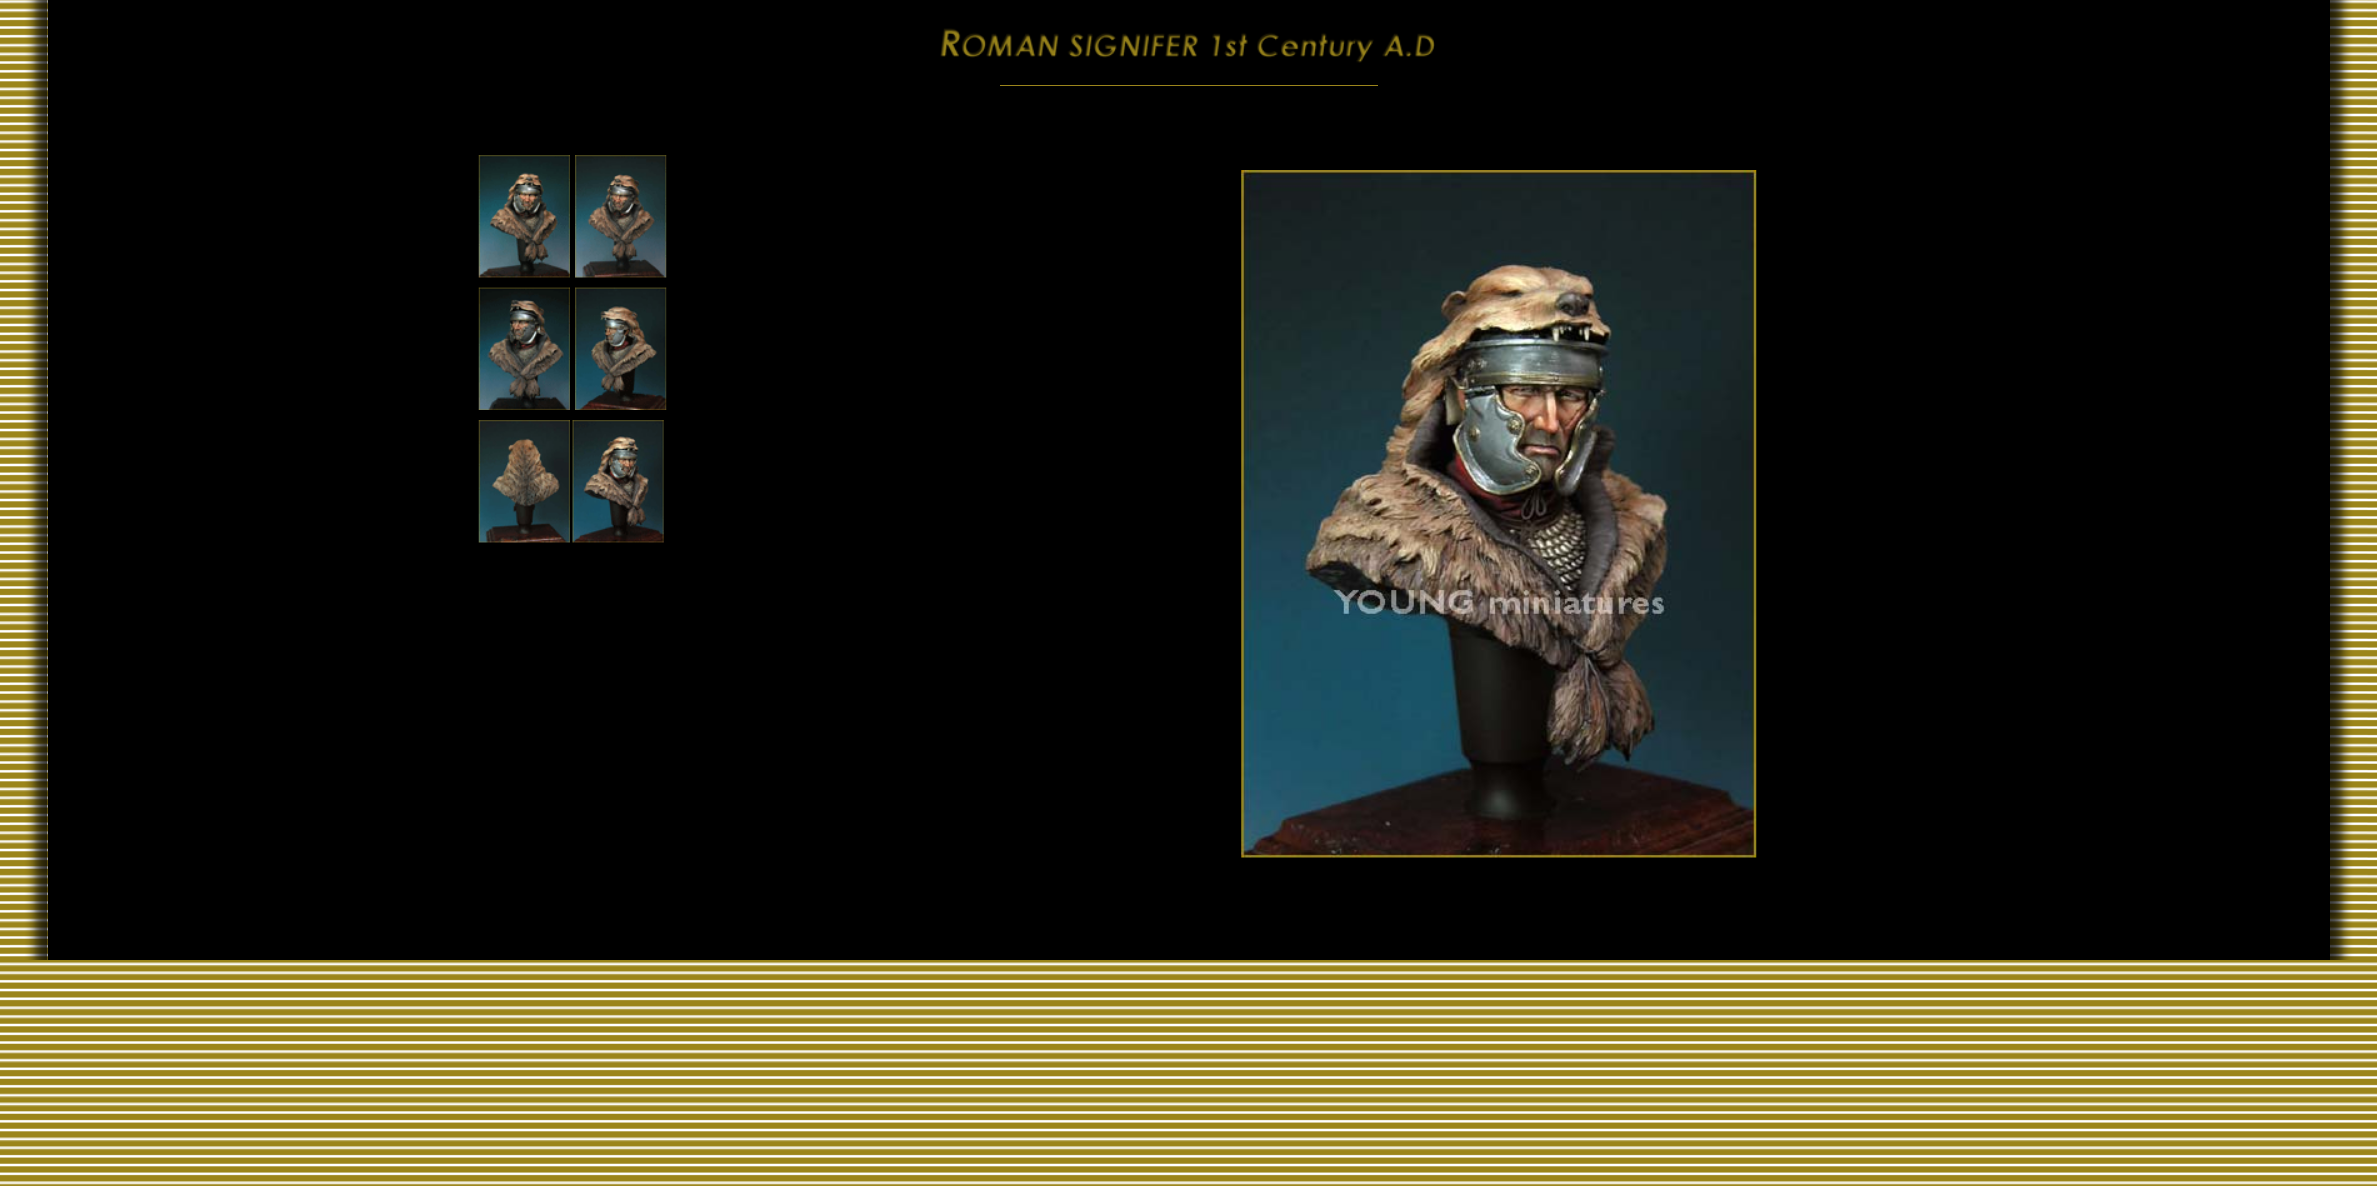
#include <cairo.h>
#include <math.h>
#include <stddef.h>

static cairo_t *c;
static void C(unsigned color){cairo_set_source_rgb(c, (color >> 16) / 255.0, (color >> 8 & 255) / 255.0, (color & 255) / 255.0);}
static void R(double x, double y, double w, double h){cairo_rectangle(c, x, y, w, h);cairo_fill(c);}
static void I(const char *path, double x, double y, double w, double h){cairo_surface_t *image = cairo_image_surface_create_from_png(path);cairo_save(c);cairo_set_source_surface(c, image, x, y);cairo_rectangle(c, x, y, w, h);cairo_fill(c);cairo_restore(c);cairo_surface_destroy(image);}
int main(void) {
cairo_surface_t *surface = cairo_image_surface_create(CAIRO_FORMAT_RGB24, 2377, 1186);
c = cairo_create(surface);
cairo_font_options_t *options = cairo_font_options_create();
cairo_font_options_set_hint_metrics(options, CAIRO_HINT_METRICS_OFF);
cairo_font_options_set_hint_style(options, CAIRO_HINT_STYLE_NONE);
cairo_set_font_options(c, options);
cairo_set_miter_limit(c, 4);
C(0xffffff);
cairo_paint(c);
I("1.png",0,0,2377,1186);
I("2.png",10,0,38,960);
C(0x000000);
R(48,0,2282,150);
I("3.png",940,28,495,35);
C(0x9b851c);
R(1000,85,378,1);
I("4.png",2330,0,38,960);
C(0x000000);
R(48,150,2282,810);
I("5.png",478,155,92,123);
I("6.png",575,155,92,123);
I("7.png",478,287,92,123);
I("8.png",575,287,92,123);
I("9.png",478,420,92,123);
I("10.png",572,420,92,123);
I("11.png",1241,170,516,688);
cairo_surface_write_to_png(surface, "o.png");
cairo_font_options_destroy(options);
cairo_destroy(c);
cairo_surface_destroy(surface);
return 0;
}
